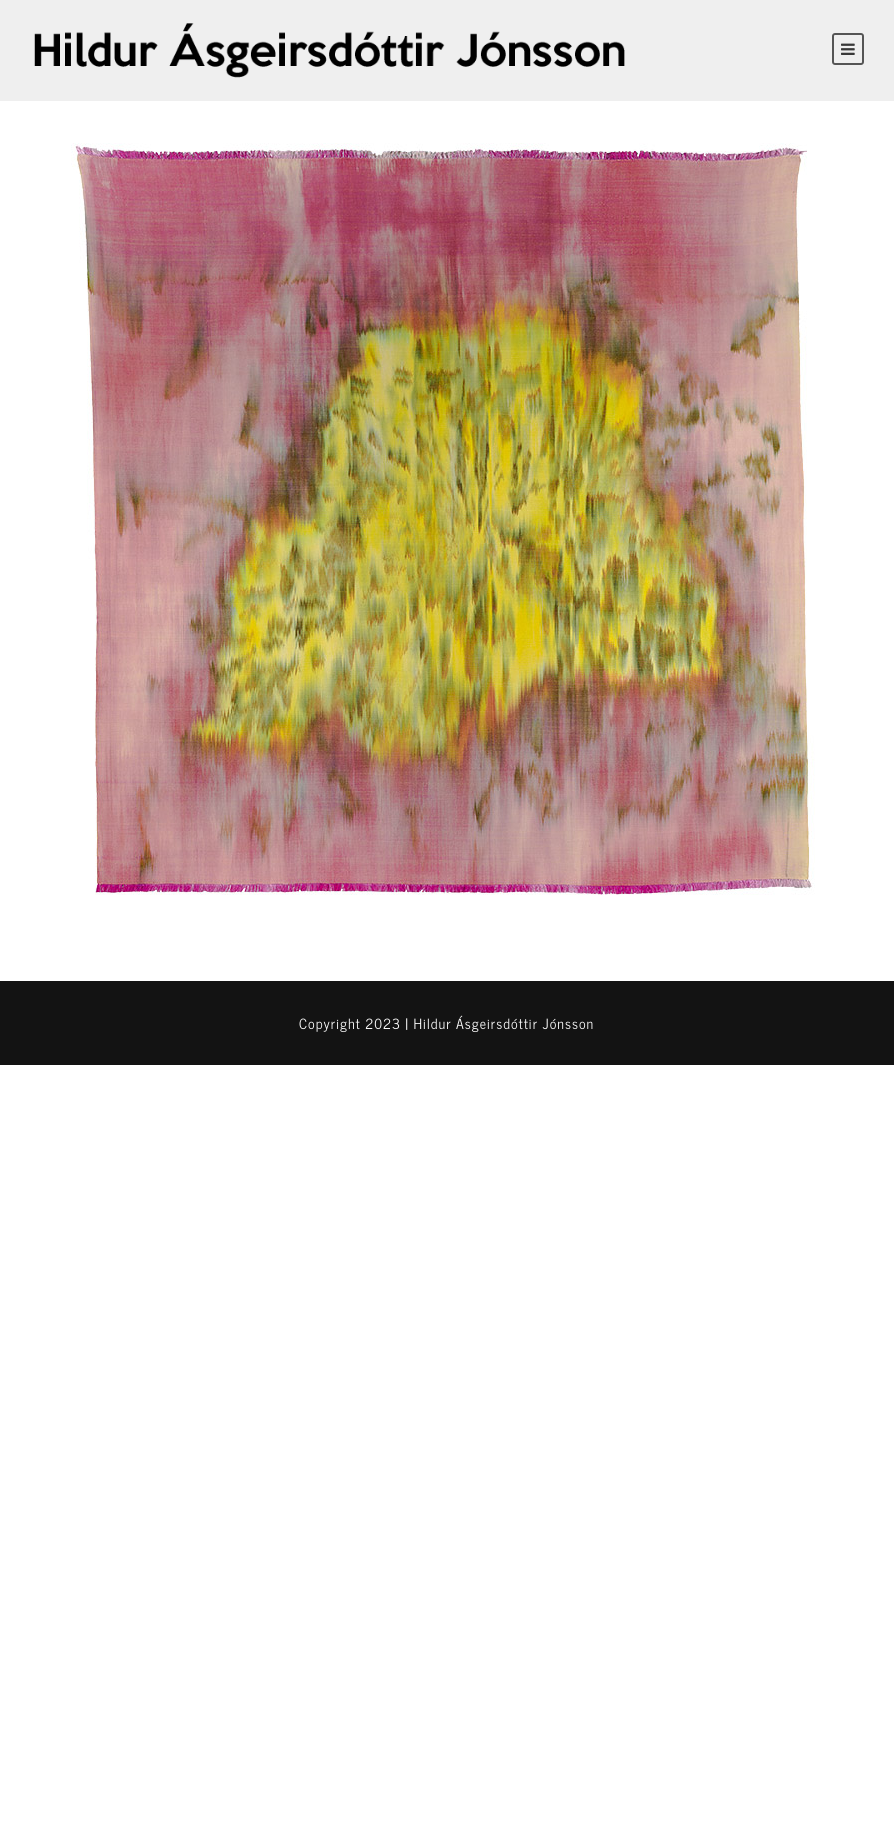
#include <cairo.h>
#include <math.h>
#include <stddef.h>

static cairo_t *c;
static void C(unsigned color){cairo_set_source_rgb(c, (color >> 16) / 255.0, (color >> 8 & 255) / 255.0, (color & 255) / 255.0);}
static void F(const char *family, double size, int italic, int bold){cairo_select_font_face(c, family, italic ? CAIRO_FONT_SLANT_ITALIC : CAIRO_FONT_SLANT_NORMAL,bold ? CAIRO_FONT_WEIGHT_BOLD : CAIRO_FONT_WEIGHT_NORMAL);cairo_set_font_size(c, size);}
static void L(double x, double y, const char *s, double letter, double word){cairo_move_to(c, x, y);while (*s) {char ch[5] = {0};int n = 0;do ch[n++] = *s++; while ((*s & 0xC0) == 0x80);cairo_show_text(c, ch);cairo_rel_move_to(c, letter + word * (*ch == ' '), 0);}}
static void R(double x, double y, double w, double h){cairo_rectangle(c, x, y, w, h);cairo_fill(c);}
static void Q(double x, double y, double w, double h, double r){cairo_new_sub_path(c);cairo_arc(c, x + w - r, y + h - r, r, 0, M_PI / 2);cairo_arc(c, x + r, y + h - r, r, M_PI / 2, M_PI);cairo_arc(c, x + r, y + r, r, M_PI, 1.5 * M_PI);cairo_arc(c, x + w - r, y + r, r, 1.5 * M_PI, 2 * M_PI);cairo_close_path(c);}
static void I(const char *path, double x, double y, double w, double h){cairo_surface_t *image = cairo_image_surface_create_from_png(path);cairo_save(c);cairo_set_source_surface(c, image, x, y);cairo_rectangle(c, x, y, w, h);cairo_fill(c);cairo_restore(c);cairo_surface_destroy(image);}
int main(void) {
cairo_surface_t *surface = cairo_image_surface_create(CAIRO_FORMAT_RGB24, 894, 1832);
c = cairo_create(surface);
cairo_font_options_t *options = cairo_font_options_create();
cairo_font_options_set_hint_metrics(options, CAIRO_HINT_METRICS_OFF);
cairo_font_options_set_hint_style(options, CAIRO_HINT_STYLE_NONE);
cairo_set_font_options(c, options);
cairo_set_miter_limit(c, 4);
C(0xffffff);
cairo_paint(c);
C(0xefefef);
R(0,0,894,101);
I("1.png",34,23,591,55);
Q(833,34,30,30,2);
C(0x555555);
cairo_stroke(c);
I("2.png",841,43,14,12);
I("3.png",71,143,744,752);
C(0x131313);
R(0,981,894,84);
F("News Cycle",14,0,0);
C(0xffffff);
L(299,1029,"Copyright 2023 | Hildur Ásgeirsdóttir Jónsson",1,0);
cairo_surface_write_to_png(surface, "o.png");
cairo_font_options_destroy(options);
cairo_destroy(c);
cairo_surface_destroy(surface);
return 0;
}
